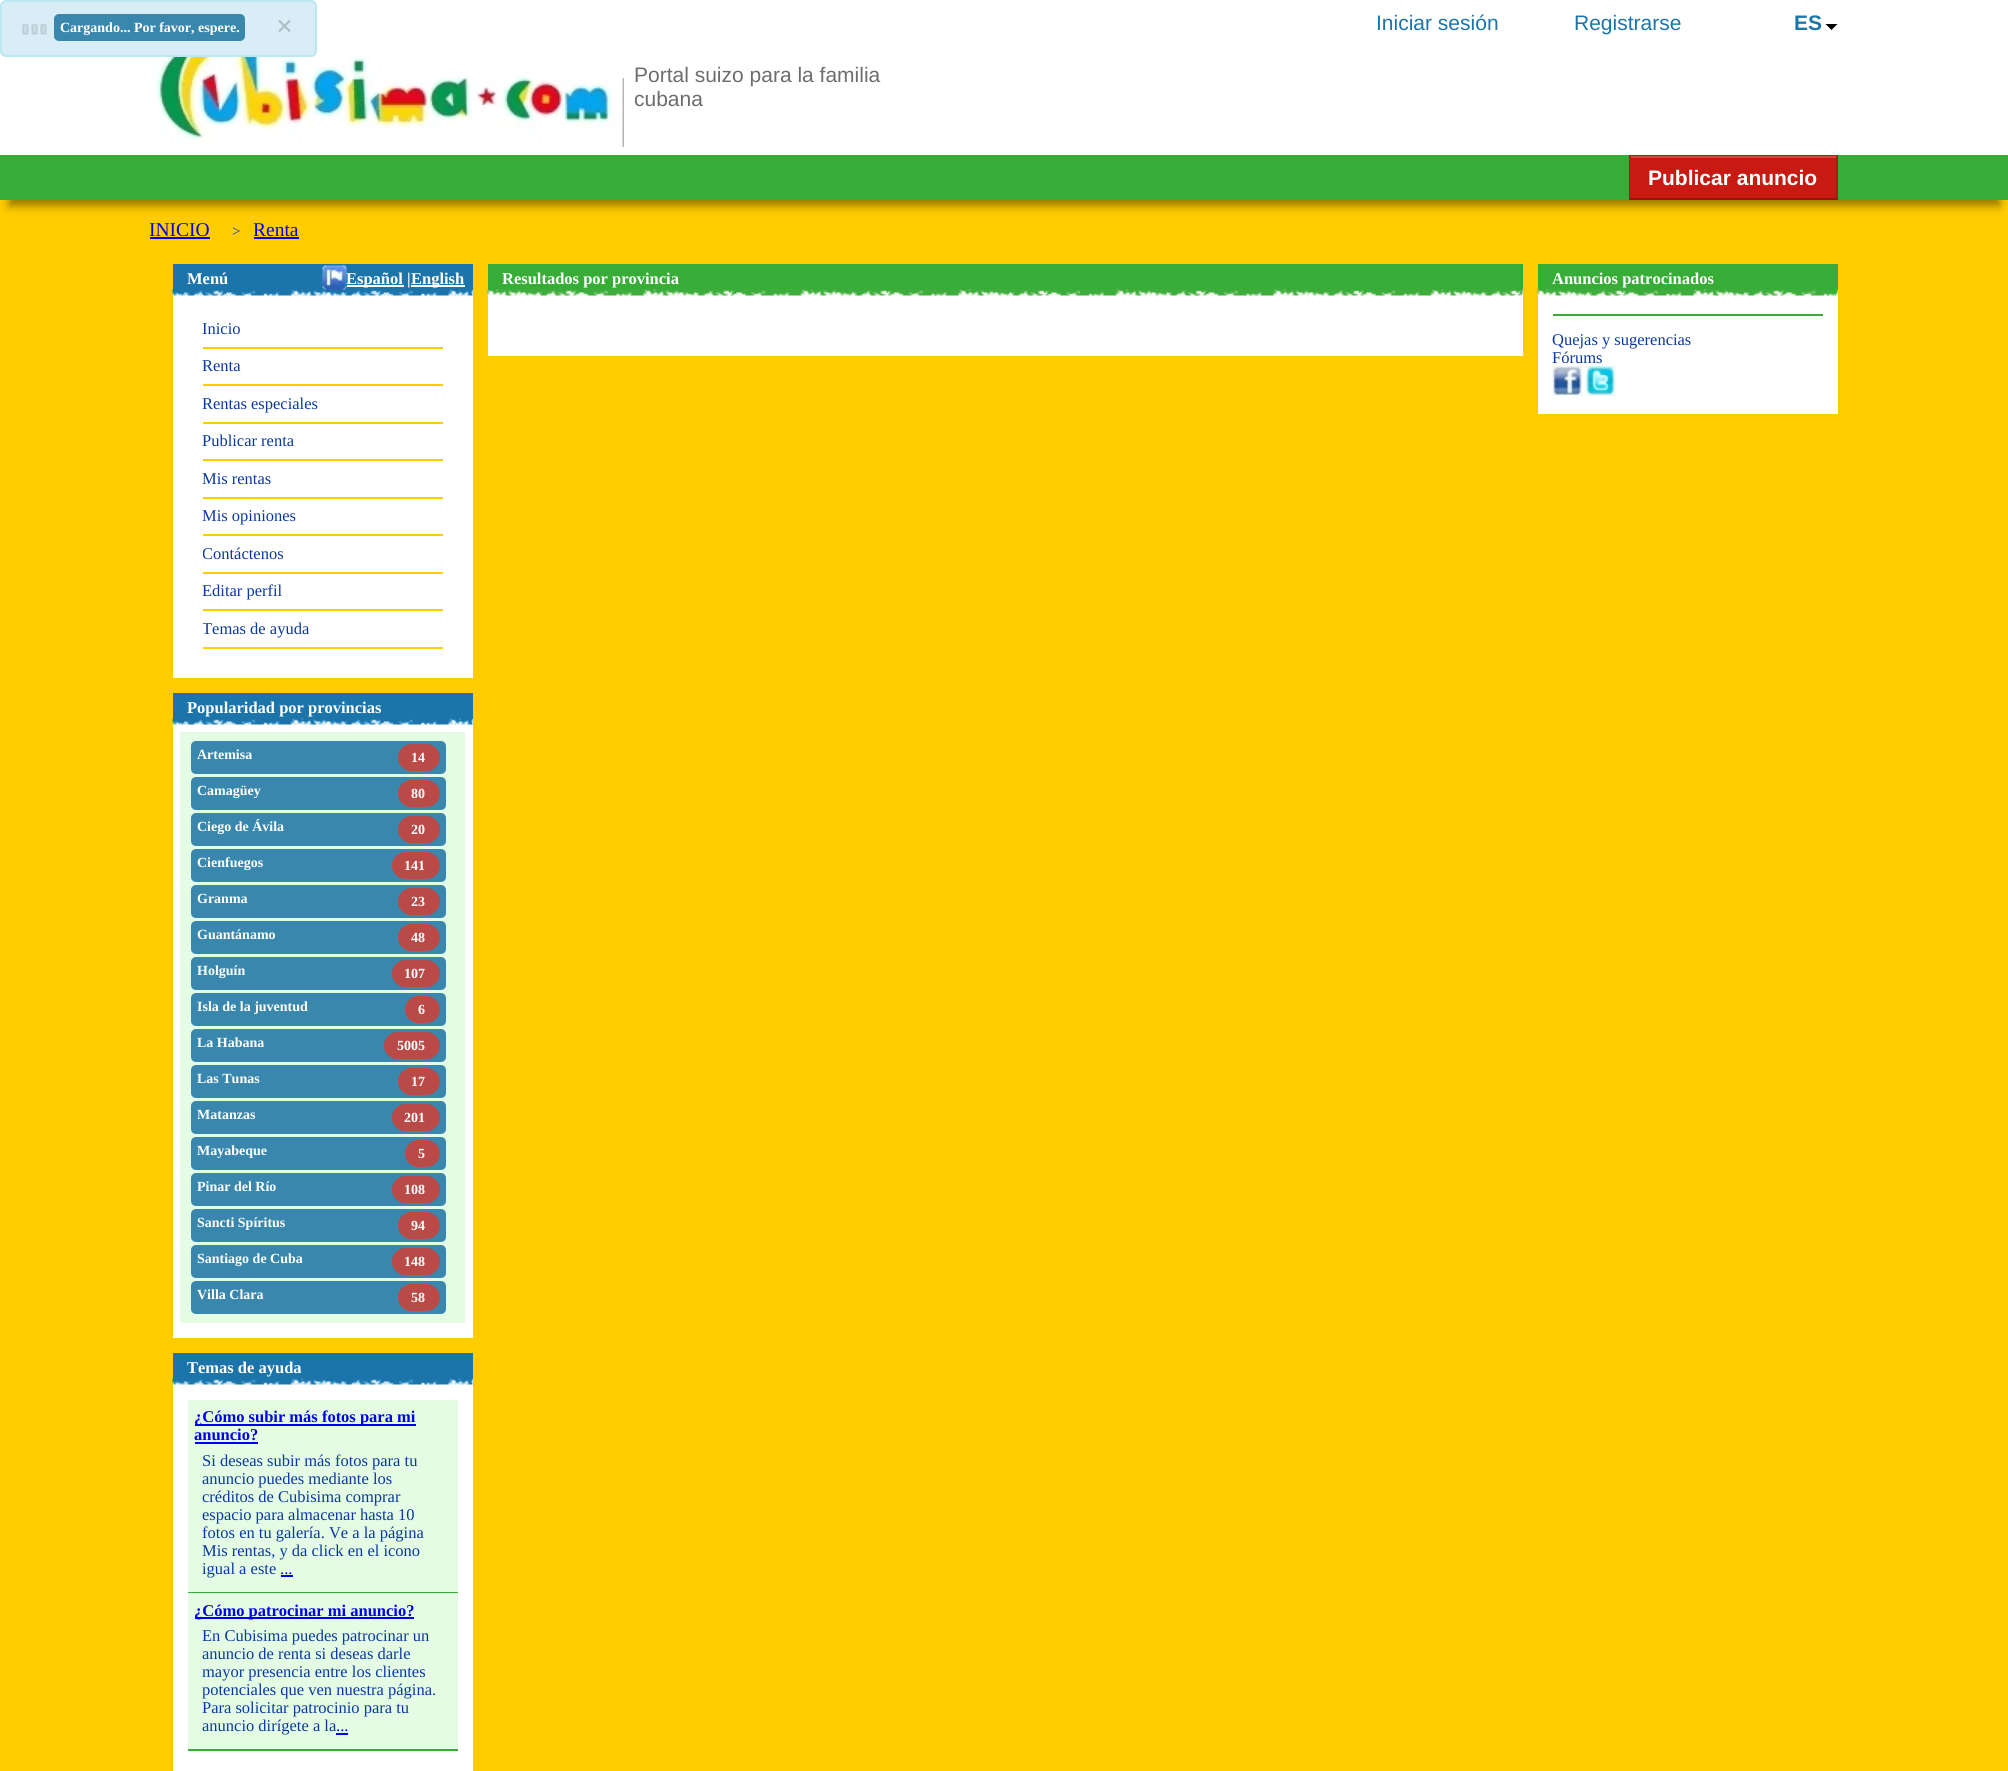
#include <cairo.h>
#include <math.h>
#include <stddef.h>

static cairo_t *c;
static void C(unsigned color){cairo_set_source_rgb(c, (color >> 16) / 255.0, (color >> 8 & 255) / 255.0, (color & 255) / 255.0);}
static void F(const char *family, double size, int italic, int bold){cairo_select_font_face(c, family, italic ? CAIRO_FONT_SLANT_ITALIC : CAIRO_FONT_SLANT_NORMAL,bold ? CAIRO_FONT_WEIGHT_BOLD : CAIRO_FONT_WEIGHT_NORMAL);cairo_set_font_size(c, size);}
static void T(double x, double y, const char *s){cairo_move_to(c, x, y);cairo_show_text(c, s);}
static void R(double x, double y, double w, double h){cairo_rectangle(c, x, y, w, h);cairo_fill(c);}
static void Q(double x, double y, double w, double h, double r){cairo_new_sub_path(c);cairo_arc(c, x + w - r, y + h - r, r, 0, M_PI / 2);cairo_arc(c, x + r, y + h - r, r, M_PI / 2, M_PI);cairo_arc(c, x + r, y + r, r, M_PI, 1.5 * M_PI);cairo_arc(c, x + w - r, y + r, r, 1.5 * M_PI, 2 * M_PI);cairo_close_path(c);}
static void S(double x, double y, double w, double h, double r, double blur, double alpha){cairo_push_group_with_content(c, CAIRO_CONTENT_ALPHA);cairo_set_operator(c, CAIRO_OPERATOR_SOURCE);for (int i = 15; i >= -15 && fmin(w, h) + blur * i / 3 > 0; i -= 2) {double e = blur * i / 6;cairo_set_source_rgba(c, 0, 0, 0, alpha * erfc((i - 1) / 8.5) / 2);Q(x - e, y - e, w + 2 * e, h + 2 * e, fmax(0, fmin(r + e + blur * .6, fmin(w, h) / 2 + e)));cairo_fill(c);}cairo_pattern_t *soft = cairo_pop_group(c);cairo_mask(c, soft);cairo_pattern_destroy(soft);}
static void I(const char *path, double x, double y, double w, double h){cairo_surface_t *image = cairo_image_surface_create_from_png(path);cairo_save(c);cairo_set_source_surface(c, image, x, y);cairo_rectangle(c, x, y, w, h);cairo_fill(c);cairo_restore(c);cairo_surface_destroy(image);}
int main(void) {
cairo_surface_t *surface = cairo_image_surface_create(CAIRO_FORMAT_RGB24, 2008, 1771);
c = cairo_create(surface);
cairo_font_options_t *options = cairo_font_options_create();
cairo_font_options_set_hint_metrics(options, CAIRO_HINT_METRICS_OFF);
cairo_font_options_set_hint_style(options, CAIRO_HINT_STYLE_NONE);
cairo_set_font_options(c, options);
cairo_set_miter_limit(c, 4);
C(0xffcc00);
cairo_paint(c);
C(0xffffff);
R(0,0,2008,155);
I("2.png",155,31,469,116);
C(0xd9edf7);
Q(1,1,315,55,5);
cairo_fill_preserve(c);
C(0xbce8f1);
cairo_stroke(c);
I("1.png",22,23,25,12);
C(0x3a87ad);
Q(54,14,191,27,5);
cairo_fill(c);
F("Liberation Serif",14,0,1);
C(0xffffff);
T(60,32,"Cargando... Por favor, espere.");
F("Liberation Serif",30,0,1);
C(0xaebec6);
T(276,36,"×");
C(0x000000);
S(9,179,1991,27,0,4.5,.4);
C(0x37ac37);
R(0,155,2008,45);
C(0xc61a13);
R(1629,155,209,45);
cairo_set_source_rgba(c,0,0,0,0.1);
cairo_new_path(c);
cairo_move_to(c,1629,154);
cairo_line_to(c,1838,154);
cairo_line_to(c,1836,156);
cairo_line_to(c,1630,156);
cairo_close_path(c);
cairo_fill(c);
cairo_new_path(c);
cairo_move_to(c,1838,154);
cairo_line_to(c,1838,200);
cairo_line_to(c,1836,198);
cairo_line_to(c,1836,156);
cairo_close_path(c);
cairo_fill(c);
cairo_set_source_rgba(c,0,0,0,0.25);
cairo_new_path(c);
cairo_move_to(c,1838,200);
cairo_line_to(c,1629,200);
cairo_line_to(c,1630,198);
cairo_line_to(c,1836,198);
cairo_close_path(c);
cairo_fill(c);
cairo_set_source_rgba(c,0,0,0,0.1);
cairo_new_path(c);
cairo_move_to(c,1629,200);
cairo_line_to(c,1629,154);
cairo_line_to(c,1630,156);
cairo_line_to(c,1630,198);
cairo_close_path(c);
cairo_fill(c);
C(0xffffff);
R(1629,154,209,1);
F("Liberation Sans",21,0,0);
C(0x1b75ab);
T(1376,30,"Iniciar sesión");
T(1574,30,"Registrarse");
F("Liberation Sans",21,0,1);
T(1794,30,"ES");
C(0x000000);
cairo_new_path(c);
cairo_move_to(c,1825.5,24);
cairo_line_to(c,1837.5,24);
cairo_line_to(c,1831.5,30);
cairo_close_path(c);
cairo_fill(c);
F("Liberation Sans",21,0,0);
C(0x6d6d6d);
T(634,82,"Portal suizo para la familia");
T(634,106,"cubana");
C(0xd14842);
R(1631,156,205,2);
F("Liberation Sans",21,0,1);
C(0xffffff);
T(1648,185,"Publicar anuncio");
F("Liberation Serif",19.5,0,0);
C(0x0000ee);
T(149,236,"INICIO");
R(150,237,60,2);
F("Liberation Serif",15,0,0);
C(0x0b38a0);
T(232,236,">");
F("Liberation Serif",19.5,0,0);
C(0x0000ee);
T(253,236,"Renta");
R(254,237,45,2);
C(0xffffff);
R(173,290,300,1481);
I("4.png",172,289,301,7);
C(0x1b75ab);
R(173,264,300,26);
F("Liberation Serif",16.5,0,1);
C(0xffffff);
T(187,284,"Menú");
I("3.png",322,265,25,25);
R(347,285,57,2);
T(346,284,"Español |");
R(411,285,54,2);
T(411,284,"English");
C(0xffcc00);
R(203,347,240,2);
F("Liberation Serif",16.5,0,0);
C(0x0b38a0);
T(202,334,"Inicio");
C(0xffcc00);
R(203,384,240,2);
C(0x0b38a0);
T(202,371,"Renta");
C(0xffcc00);
R(203,422,240,2);
C(0x0b38a0);
T(202,409,"Rentas especiales");
C(0xffcc00);
R(203,459,240,2);
C(0x0b38a0);
T(202,446,"Publicar renta");
C(0xffcc00);
R(203,497,240,2);
C(0x0b38a0);
T(202,484,"Mis rentas");
C(0xffcc00);
R(203,534,240,2);
C(0x0b38a0);
T(202,521,"Mis opiniones");
C(0xffcc00);
R(203,572,240,2);
cairo_save(c);
cairo_rectangle(c,203,536,240,36);
cairo_clip(c);
C(0x0b38a0);
T(202,559,"Contáctenos");
cairo_restore(c);
R(203,609,240,2);
C(0x0b38a0);
T(202,596,"Editar perfil");
C(0xffcc00);
R(203,647,240,2);
cairo_save(c);
cairo_rectangle(c,203,611,240,36);
cairo_clip(c);
C(0x0b38a0);
T(202,634,"Temas de ayuda");
cairo_restore(c);
R(173,678,300,15);
C(0x1b75ab);
R(173,693,300,26);
F("Liberation Serif",16.5,0,1);
C(0xffffff);
T(187,713,"Popularidad por provincias");
I("5.png",172,718,301,7);
C(0xe3fce3);
R(180,732,285,591);
C(0x3a87ad);
Q(191,741,255,33,5);
cairo_fill(c);
F("Liberation Serif",14,0,1);
C(0xffffff);
T(197,759,"Artemisa");
C(0xb94a48);
Q(398,744,42,27,13.5);
cairo_fill(c);
C(0xffffff);
T(411,762,"14");
C(0x3a87ad);
Q(191,777,255,33,5);
cairo_fill(c);
C(0xffffff);
T(197,795,"Camagüey");
C(0xb94a48);
Q(398,780,42,27,13.5);
cairo_fill(c);
C(0xffffff);
T(411,798,"80");
C(0x3a87ad);
Q(191,813,255,33,5);
cairo_fill(c);
C(0xffffff);
T(197,831,"Ciego de Ávila");
C(0xb94a48);
Q(398,816,42,27,13.5);
cairo_fill(c);
C(0xffffff);
T(411,834,"20");
C(0x3a87ad);
Q(191,849,255,33,5);
cairo_fill(c);
C(0xffffff);
T(197,867,"Cienfuegos");
C(0xb94a48);
Q(392,852,48,27,13.5);
cairo_fill(c);
C(0xffffff);
T(404,870,"141");
C(0x3a87ad);
Q(191,885,255,33,5);
cairo_fill(c);
C(0xffffff);
T(197,903,"Granma");
C(0xb94a48);
Q(398,888,42,27,13.5);
cairo_fill(c);
C(0xffffff);
T(411,906,"23");
C(0x3a87ad);
Q(191,921,255,33,5);
cairo_fill(c);
C(0xffffff);
T(197,939,"Guantánamo");
C(0xb94a48);
Q(398,924,42,27,13.5);
cairo_fill(c);
C(0xffffff);
T(411,942,"48");
C(0x3a87ad);
Q(191,957,255,33,5);
cairo_fill(c);
C(0xffffff);
T(197,975,"Holguín");
C(0xb94a48);
Q(392,960,48,27,13.5);
cairo_fill(c);
C(0xffffff);
T(404,978,"107");
C(0x3a87ad);
Q(191,993,255,33,5);
cairo_fill(c);
C(0xffffff);
T(197,1011,"Isla de la juventud");
C(0xb94a48);
Q(405,996,35,27,13.5);
cairo_fill(c);
C(0xffffff);
T(418,1014,"6");
C(0x3a87ad);
Q(191,1029,255,33,5);
cairo_fill(c);
C(0xffffff);
T(197,1047,"La Habana");
C(0xb94a48);
Q(384,1032,56,27,13.5);
cairo_fill(c);
C(0xffffff);
T(397,1050,"5005");
C(0x3a87ad);
Q(191,1065,255,33,5);
cairo_fill(c);
C(0xffffff);
T(197,1083,"Las Tunas");
C(0xb94a48);
Q(398,1068,42,27,13.5);
cairo_fill(c);
C(0xffffff);
T(411,1086,"17");
C(0x3a87ad);
Q(191,1101,255,33,5);
cairo_fill(c);
C(0xffffff);
T(197,1119,"Matanzas");
C(0xb94a48);
Q(392,1104,48,27,13.5);
cairo_fill(c);
C(0xffffff);
T(404,1122,"201");
C(0x3a87ad);
Q(191,1137,255,33,5);
cairo_fill(c);
C(0xffffff);
T(197,1155,"Mayabeque");
C(0xb94a48);
Q(405,1140,35,27,13.5);
cairo_fill(c);
C(0xffffff);
T(418,1158,"5");
C(0x3a87ad);
Q(191,1173,255,33,5);
cairo_fill(c);
C(0xffffff);
T(197,1191,"Pinar del Río");
C(0xb94a48);
Q(392,1176,48,27,13.5);
cairo_fill(c);
C(0xffffff);
T(404,1194,"108");
C(0x3a87ad);
Q(191,1209,255,33,5);
cairo_fill(c);
C(0xffffff);
T(197,1227,"Sancti Spíritus");
C(0xb94a48);
Q(398,1212,42,27,13.5);
cairo_fill(c);
C(0xffffff);
T(411,1230,"94");
C(0x3a87ad);
Q(191,1245,255,33,5);
cairo_fill(c);
C(0xffffff);
T(197,1263,"Santiago de Cuba");
C(0xb94a48);
Q(392,1248,48,27,13.5);
cairo_fill(c);
C(0xffffff);
T(404,1266,"148");
C(0x3a87ad);
Q(191,1281,255,33,5);
cairo_fill(c);
C(0xffffff);
T(197,1299,"Villa Clara");
C(0xb94a48);
Q(398,1284,42,27,13.5);
cairo_fill(c);
C(0xffffff);
T(411,1302,"58");
C(0xffcc00);
R(173,1338,300,15);
C(0x1b75ab);
R(173,1353,300,26);
F("Liberation Serif",16.5,0,1);
C(0xffffff);
T(187,1373,"Temas de ayuda");
I("6.png",172,1378,301,7);
C(0xe3fce3);
R(188,1400,270,192);
C(0x0000ee);
R(195,1424,221,2);
T(194,1422,"¿Cómo subir más fotos para mi");
T(194,1440,"anuncio?");
R(195,1442,63,2);
F("Liberation Serif",16.5,0,0);
C(0x0b38a0);
T(202,1466,"Si deseas subir más fotos para tu");
T(202,1484,"anuncio puedes mediante los");
T(202,1502,"créditos de Cubisima comprar");
T(202,1520,"espacio para almacenar hasta 10");
T(202,1538,"fotos en tu galería. Ve a la página");
T(202,1556,"Mis rentas, y da click en el icono");
T(202,1574,"igual a este");
C(0x0000ee);
T(280,1574,"...");
R(281,1575,12,2);
C(0x37ac37);
R(188,1592,270,1);
C(0xe3fce3);
R(188,1593,270,156);
C(0x0000ee);
R(195,1617,219,2);
F("Liberation Serif",16.5,0,1);
T(194,1616,"¿Cómo patrocinar mi anuncio?");
F("Liberation Serif",16.5,0,0);
C(0x0b38a0);
T(202,1641,"En Cubisima puedes patrocinar un");
T(202,1659,"anuncio de renta si deseas darle");
T(202,1677,"mayor presencia entre los clientes");
T(202,1695,"potenciales que ven nuestra página.");
T(202,1713,"Para solicitar patrocinio para tu");
T(202,1731,"anuncio dirígete a la");
C(0x0000ee);
T(336,1731,"...");
R(336,1733,12,2);
C(0x37ac37);
R(188,1749,270,2);
C(0xffffff);
R(488,290,1035,66);
C(0x37ac37);
R(488,264,1035,26);
F("Liberation Serif",16.5,0,1);
C(0xffffff);
T(502,284,"Resultados por provincia");
I("7.png",487,289,1036,7);
R(1538,290,300,124);
C(0x37ac37);
R(1538,264,300,26);
C(0xffffff);
T(1552,284,"Anuncios patrocinados");
I("8.png",1537,289,301,7);
C(0x37ac37);
R(1553,314,270,2);
F("Liberation Serif",16.5,0,0);
C(0x0b38a0);
T(1552,345,"Quejas y sugerencias");
T(1552,363,"Fórums");
I("9.png",1552,366,31,30);
I("10.png",1585,366,31,30);
cairo_surface_write_to_png(surface, "o.png");
cairo_font_options_destroy(options);
cairo_destroy(c);
cairo_surface_destroy(surface);
return 0;
}
